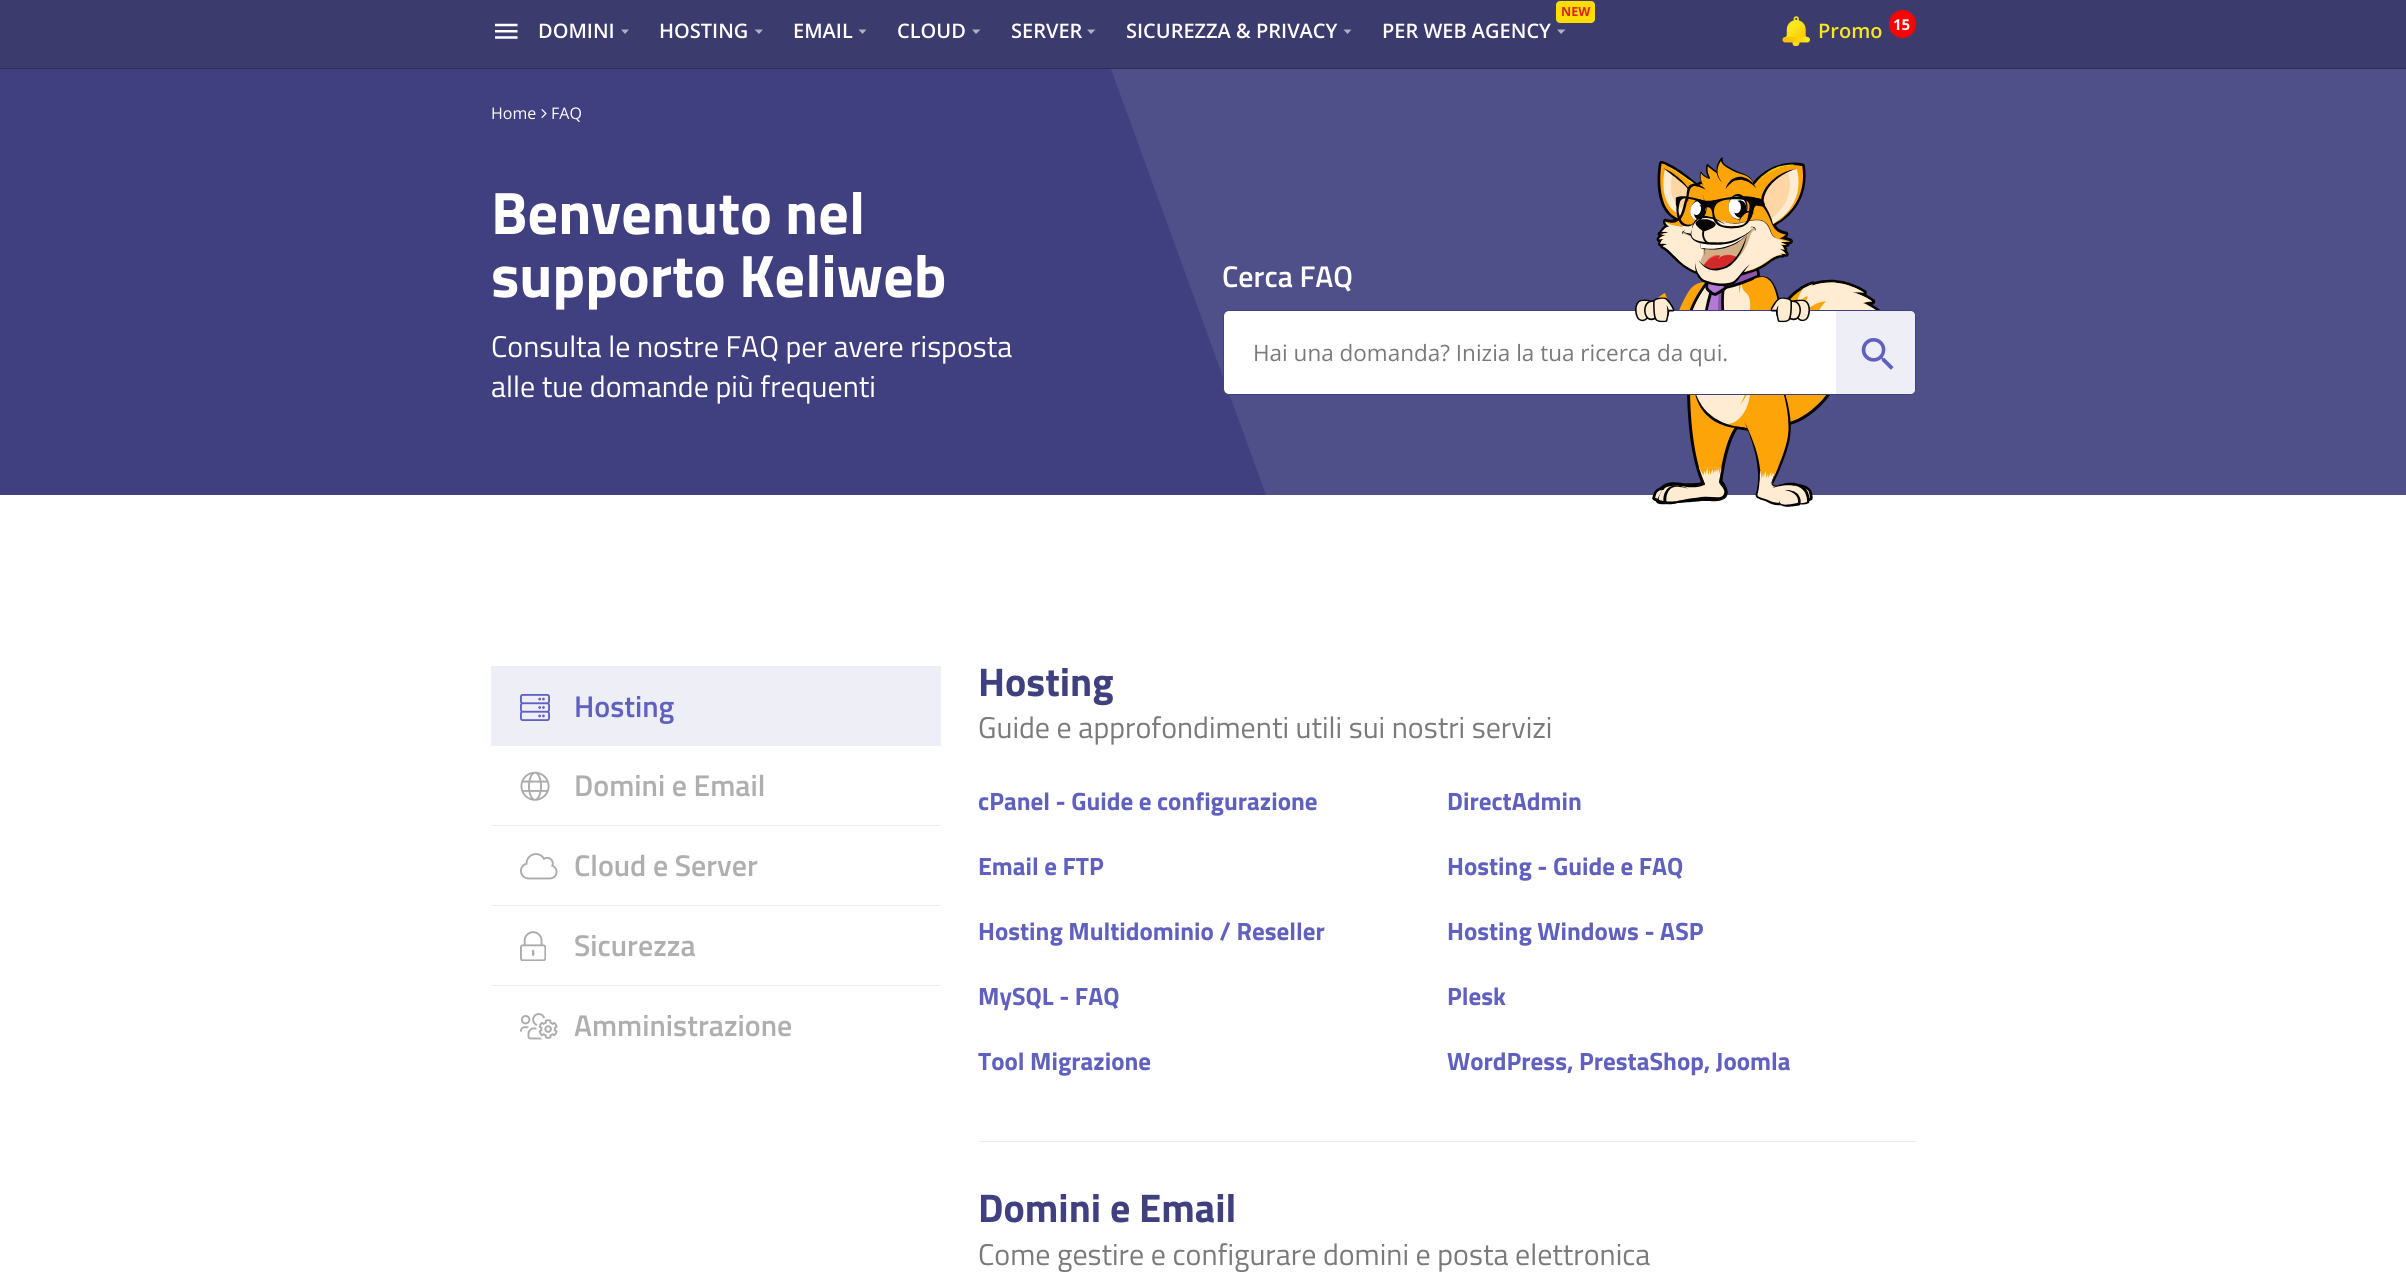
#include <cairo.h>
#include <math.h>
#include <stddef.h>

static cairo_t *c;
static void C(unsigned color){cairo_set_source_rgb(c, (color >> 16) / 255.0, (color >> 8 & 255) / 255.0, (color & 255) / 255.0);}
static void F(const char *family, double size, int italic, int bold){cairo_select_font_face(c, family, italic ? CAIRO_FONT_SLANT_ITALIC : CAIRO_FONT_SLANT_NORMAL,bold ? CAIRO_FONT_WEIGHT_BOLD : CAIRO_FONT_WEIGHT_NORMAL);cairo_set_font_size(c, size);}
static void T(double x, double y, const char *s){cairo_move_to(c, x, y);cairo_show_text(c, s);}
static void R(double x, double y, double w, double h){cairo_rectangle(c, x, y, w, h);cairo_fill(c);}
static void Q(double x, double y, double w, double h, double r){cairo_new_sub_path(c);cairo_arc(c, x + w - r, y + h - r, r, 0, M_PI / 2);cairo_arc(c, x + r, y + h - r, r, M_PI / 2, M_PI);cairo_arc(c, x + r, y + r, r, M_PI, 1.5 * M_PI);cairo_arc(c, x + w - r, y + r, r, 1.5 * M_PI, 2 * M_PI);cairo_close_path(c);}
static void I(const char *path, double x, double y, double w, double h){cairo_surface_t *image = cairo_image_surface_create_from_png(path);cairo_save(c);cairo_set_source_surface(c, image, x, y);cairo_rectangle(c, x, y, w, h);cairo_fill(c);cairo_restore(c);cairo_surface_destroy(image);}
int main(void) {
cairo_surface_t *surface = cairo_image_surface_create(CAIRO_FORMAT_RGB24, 2406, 1279);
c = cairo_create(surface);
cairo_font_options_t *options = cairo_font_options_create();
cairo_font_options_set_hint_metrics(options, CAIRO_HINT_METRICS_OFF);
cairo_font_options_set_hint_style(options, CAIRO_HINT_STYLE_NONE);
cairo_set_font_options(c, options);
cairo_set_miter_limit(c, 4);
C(0xffffff);
cairo_paint(c);
C(0x3b3b6d);
R(0,0,2406,68);
C(0x2d2d54);
R(0,68,2406,1);
I("1.png",495,23,23,16);
F("Open Sans SemiBold",20,0,0);
C(0xffffff);
T(538,38,"DOMINI");
C(0xb1b1c5);
cairo_new_path(c);
cairo_move_to(c,621,29.5);
cairo_line_to(c,629,29.5);
cairo_line_to(c,625,34);
cairo_close_path(c);
cairo_fill(c);
C(0xffffff);
T(659,38,"HOSTING");
C(0xb1b1c5);
cairo_new_path(c);
cairo_move_to(c,754.5,29.5);
cairo_line_to(c,763,29.5);
cairo_line_to(c,759,34);
cairo_close_path(c);
cairo_fill(c);
C(0xffffff);
T(793,38,"EMAIL");
C(0xb1b1c5);
cairo_new_path(c);
cairo_move_to(c,858.5,29.5);
cairo_line_to(c,866.5,29.5);
cairo_line_to(c,862.5,34);
cairo_close_path(c);
cairo_fill(c);
C(0xffffff);
T(897,38,"CLOUD");
C(0xb1b1c5);
cairo_new_path(c);
cairo_move_to(c,972,29.5);
cairo_line_to(c,980.5,29.5);
cairo_line_to(c,976,34);
cairo_close_path(c);
cairo_fill(c);
C(0xffffff);
T(1011,38,"SERVER");
C(0xb1b1c5);
cairo_new_path(c);
cairo_move_to(c,1087,29.5);
cairo_line_to(c,1095.5,29.5);
cairo_line_to(c,1091,34);
cairo_close_path(c);
cairo_fill(c);
C(0xffffff);
T(1126,38,"SICUREZZA & PRIVACY");
C(0xb1b1c5);
cairo_new_path(c);
cairo_move_to(c,1343.5,29.5);
cairo_line_to(c,1351.5,29.5);
cairo_line_to(c,1347.5,34);
cairo_close_path(c);
cairo_fill(c);
C(0xffdd02);
Q(1556,1,39,22,4);
cairo_fill(c);
F("Open Sans",12.5,0,1);
C(0xe02020);
T(1561,16,"NEW");
F("Open Sans SemiBold",20,0,0);
C(0xffffff);
T(1382,38,"PER WEB AGENCY");
C(0xb1b1c5);
cairo_new_path(c);
cairo_move_to(c,1557,29.5);
cairo_line_to(c,1565.5,29.5);
cairo_line_to(c,1561,34);
cairo_close_path(c);
cairo_fill(c);
I("2.png",1782,16,28,30);
C(0xf8e71c);
T(1818,38,"Promo");
C(0xff0000);
Q(1889,10,27,28,13.5);
cairo_fill(c);
F("Open Sans",15,0,1);
C(0xffffff);
T(1893,30,"15");
C(0x404080);
R(0,69,1266,426);
C(0x4f4f8a);
cairo_new_path(c);
cairo_move_to(c,1111,69);
cairo_line_to(c,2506,69);
cairo_line_to(c,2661,495);
cairo_line_to(c,1266,495);
cairo_close_path(c);
cairo_fill(c);
F("Open Sans",16,0,0);
C(0xffffff);
T(491,119,"Home");
I("3.png",541,109,6,9);
T(551,119,"FAQ");
F("Titillium Web",60,0,1);
T(491,234,"Benvenuto nel");
T(491,297,"supporto Keliweb");
F("Titillium Web",30,0,0);
T(491,357,"Consulta le nostre FAQ per avere risposta");
T(491,397,"alle tue domande più frequenti");
F("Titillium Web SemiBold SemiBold",30,0,0);
T(1222,287,"Cerca FAQ");
I("4.png",1652,157,228,350);
Q(1223.5,310.5,692,84,5.5);
cairo_fill_preserve(c);
C(0x404080);
cairo_set_line_width(c,1);
cairo_stroke(c);
I("5.png",1635,297,175,26);
F("Open Sans",22.5,0,0);
C(0x7a7a7a);
T(1253,361,"Hai una domanda? Inizia la tua ricerca da qui.");
C(0xeeeef7);
cairo_new_path(c);
cairo_move_to(c,1836,311);
cairo_line_to(c,1910,311);
cairo_curve_to(c,1913,311,1915,313,1915,316);
cairo_line_to(c,1915,389);
cairo_curve_to(c,1915,392,1913,394,1910,394);
cairo_line_to(c,1836,394);
cairo_close_path(c);
cairo_fill(c);
I("6.png",1861,338,33,32);
R(491,666,450,80);
I("7.png",520,694,30,27);
F("Titillium Web SemiBold SemiBold",30,0,0);
C(0x6060bf);
T(574,717,"Hosting");
C(0xeeeef7);
R(491,825,450,1);
I("8.png",520,771,30,30);
C(0xafafaf);
T(574,796,"Domini e Email");
C(0xeeeef7);
R(491,905,450,1);
I("9.png",520,853,38,27);
C(0xafafaf);
T(574,876,"Cloud e Server");
C(0xeeeef7);
R(491,985,450,1);
I("10.png",520,931,26,30);
C(0xafafaf);
T(574,956,"Sicurezza");
I("11.png",520,1013,38,27);
T(574,1036,"Amministrazione");
C(0xeaeaf1);
R(979,1141,937,1);
F("Titillium Web",40,0,1);
C(0x404080);
T(978,696,"Hosting");
F("Titillium Web",30,0,0);
C(0x7a7a7a);
T(978,738,"Guide e approfondimenti utili sui nostri servizi");
F("Titillium Web",25,0,1);
C(0x6060bf);
T(978,810,"cPanel - Guide e configurazione");
T(1447,810,"DirectAdmin");
T(978,875,"Email e FTP");
T(1447,875,"Hosting - Guide e FAQ");
T(978,940,"Hosting Multidominio / Reseller");
T(1447,940,"Hosting Windows - ASP");
T(978,1005,"MySQL - FAQ");
T(1447,1005,"Plesk");
T(978,1070,"Tool Migrazione");
T(1447,1070,"WordPress, PrestaShop, Joomla");
F("Titillium Web",40,0,1);
C(0x404080);
T(978,1222,"Domini e Email");
F("Titillium Web",30,0,0);
C(0x7a7a7a);
T(978,1265,"Come gestire e configurare domini e posta elettronica");
cairo_surface_write_to_png(surface, "o.png");
cairo_font_options_destroy(options);
cairo_destroy(c);
cairo_surface_destroy(surface);
return 0;
}
